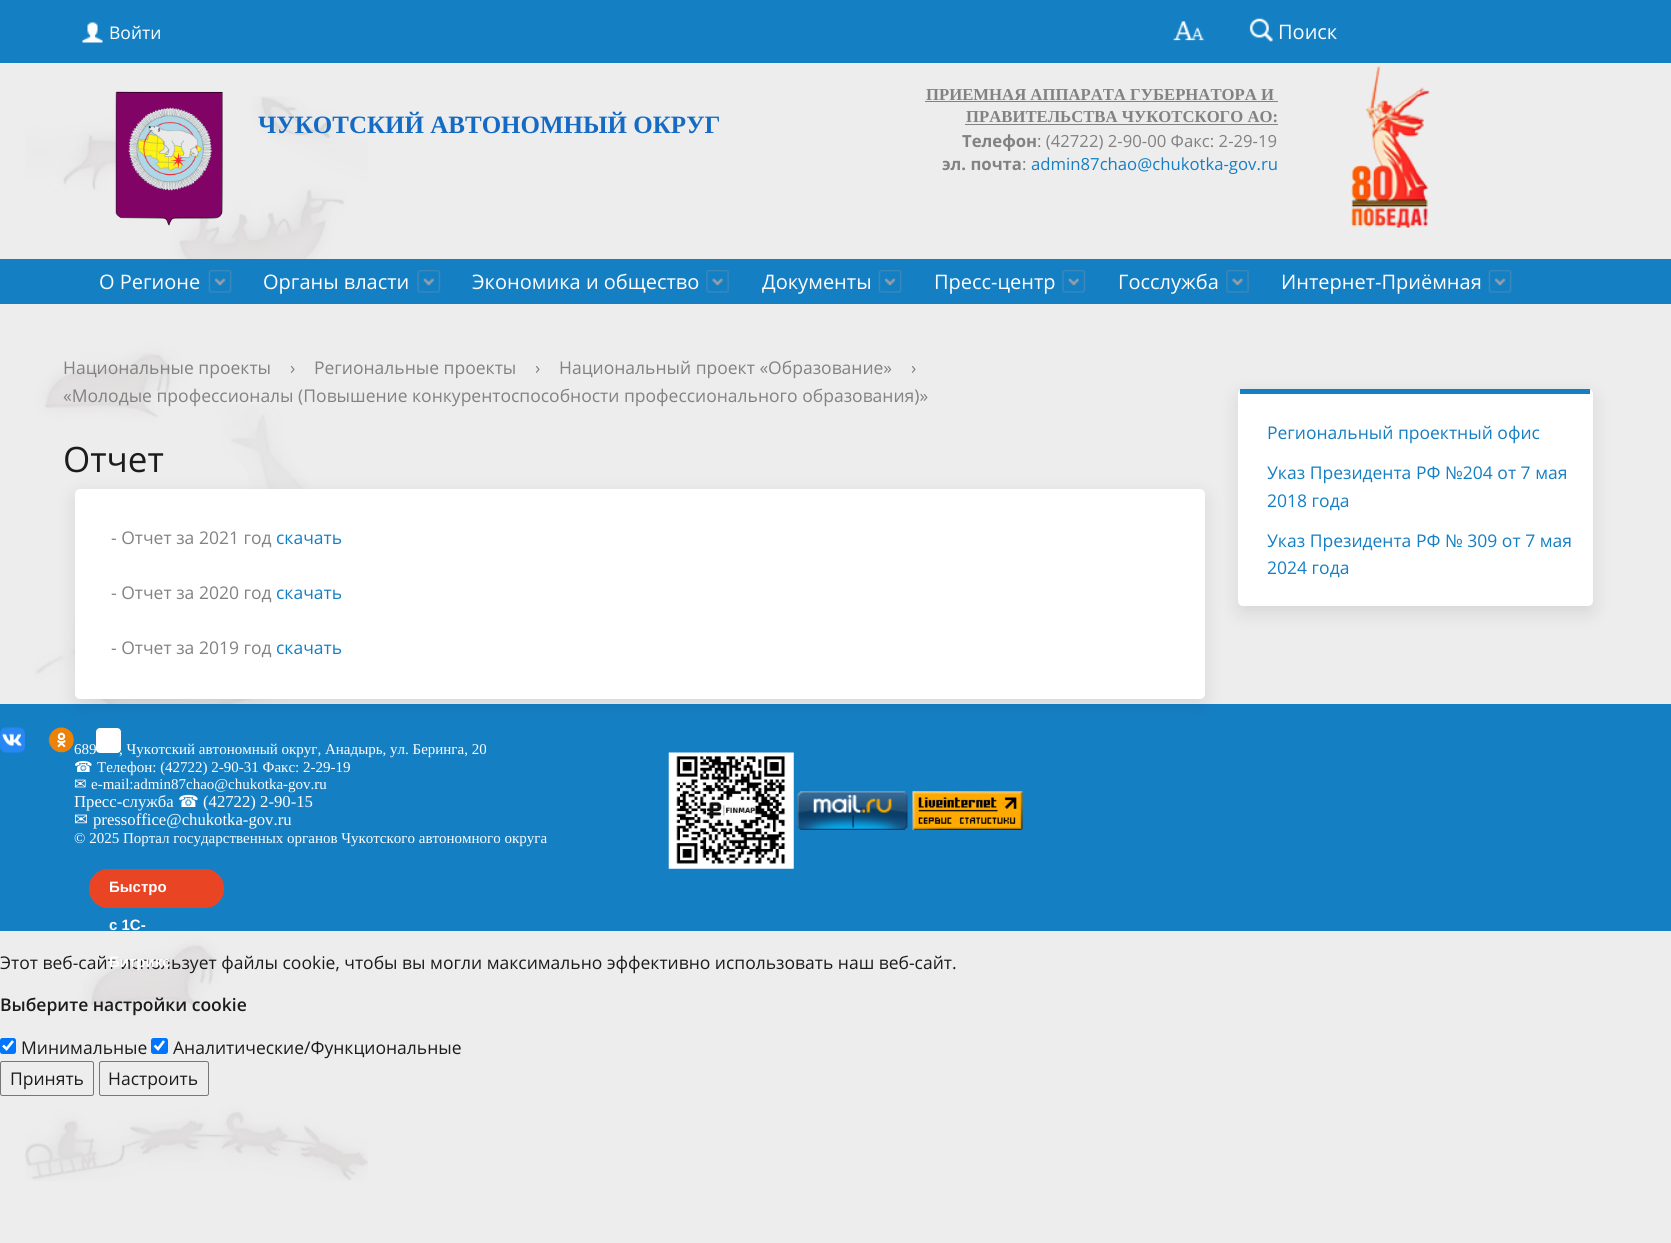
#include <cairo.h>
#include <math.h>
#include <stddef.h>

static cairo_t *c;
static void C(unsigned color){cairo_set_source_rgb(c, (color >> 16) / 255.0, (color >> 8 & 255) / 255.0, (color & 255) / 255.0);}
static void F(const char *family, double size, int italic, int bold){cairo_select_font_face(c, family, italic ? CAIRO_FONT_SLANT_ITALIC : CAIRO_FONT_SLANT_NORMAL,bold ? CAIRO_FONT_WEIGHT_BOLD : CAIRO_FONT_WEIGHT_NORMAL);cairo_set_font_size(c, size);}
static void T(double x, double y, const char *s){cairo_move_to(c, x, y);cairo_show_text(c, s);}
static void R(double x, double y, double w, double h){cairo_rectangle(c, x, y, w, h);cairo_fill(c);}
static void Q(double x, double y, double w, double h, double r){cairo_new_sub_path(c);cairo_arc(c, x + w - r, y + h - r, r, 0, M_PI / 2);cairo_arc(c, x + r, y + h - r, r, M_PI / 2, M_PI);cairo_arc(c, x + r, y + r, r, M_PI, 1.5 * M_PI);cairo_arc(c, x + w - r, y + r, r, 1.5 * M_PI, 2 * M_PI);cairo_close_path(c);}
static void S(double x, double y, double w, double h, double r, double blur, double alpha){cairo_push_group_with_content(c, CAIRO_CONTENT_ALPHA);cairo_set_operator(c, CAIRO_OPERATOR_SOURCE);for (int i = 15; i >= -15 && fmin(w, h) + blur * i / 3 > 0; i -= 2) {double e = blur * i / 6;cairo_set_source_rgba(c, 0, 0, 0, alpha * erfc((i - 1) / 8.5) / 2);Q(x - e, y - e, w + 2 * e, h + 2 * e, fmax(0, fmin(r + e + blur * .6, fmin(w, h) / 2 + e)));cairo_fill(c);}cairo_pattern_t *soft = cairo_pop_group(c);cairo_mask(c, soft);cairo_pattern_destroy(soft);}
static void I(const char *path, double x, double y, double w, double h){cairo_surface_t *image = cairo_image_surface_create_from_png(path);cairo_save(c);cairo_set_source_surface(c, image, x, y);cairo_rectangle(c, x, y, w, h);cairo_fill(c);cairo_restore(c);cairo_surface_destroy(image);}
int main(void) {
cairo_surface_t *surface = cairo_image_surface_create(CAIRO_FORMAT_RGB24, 1671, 1243);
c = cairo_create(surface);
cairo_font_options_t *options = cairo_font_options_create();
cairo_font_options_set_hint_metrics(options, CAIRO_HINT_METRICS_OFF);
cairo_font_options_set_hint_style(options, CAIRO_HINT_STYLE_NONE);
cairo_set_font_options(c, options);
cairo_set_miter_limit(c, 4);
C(0xededed);
cairo_paint(c);
I("1.png",25,96,343,1085);
C(0x157fc4);
R(0,0,1671,63);
cairo_save(c);
cairo_rectangle(c,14,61,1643,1);
cairo_clip(c);
C(0x000000);
S(0,69,1671,196,0,9.5,.1);
cairo_restore(c);
I("2.png",82,22,21,21);
F("Open Sans",17.5,0,0);
C(0xffffff);
T(109,39,"Войти");
I("3.png",1173,21,31,20);
I("4.png",1249,18,24,24);
F("Open Sans",20,0,0);
T(1278,39,"Поиск");
I("5.png",115,91,108,135);
F("Liberation Serif",25,0,1);
C(0x156bc4);
T(258,133,"ЧУКОТСКИЙ АВТОНОМНЫЙ ОКРУГ");
F("Liberation Serif",16.7,0,1);
C(0x828282);
T(926,100,"ПРИЕМНАЯ АППАРАТА ГУБЕРНАТОРА И");
R(925,101,353,1);
T(966,122,"ПРАВИТЕЛЬСТВА ЧУКОТСКОГО АО:");
R(965,124,313,1);
F("Open Sans",16.7,0,1);
T(962,147,"Телефон");
F("Open Sans",16.7,0,0);
T(1037,147,": (42722) 2-90-00 Факс: 2-29-19");
F("Open Sans",16.7,0,1);
T(942,170,"эл. почта");
F("Open Sans",16.7,0,0);
T(1022,170,":");
C(0x157fc4);
T(1031,170,"admin87chao@chukotka-gov.ru");
I("6.png",1351,66,79,162);
R(0,259,1671,45);
F("Open Sans",20,0,0);
C(0xffffff);
T(99,289,"О Регионе");
I("7.png",208,270,24,23);
T(263,289,"Органы власти");
I("8.png",417,270,24,23);
T(472,289,"Экономика и общество");
I("9.png",706,270,23,23);
T(762,289,"Документы");
I("7.png",878,270,24,23);
T(934,289,"Пресс-центр");
I("8.png",1062,270,24,23);
T(1118,289,"Госслужба");
I("10.png",1226,270,23,23);
T(1281,289,"Интернет-Приёмная");
I("7.png",1488,270,24,23);
F("Open Sans",17.5,0,0);
C(0x828282);
T(63,374,"Национальные проекты");
T(290,374,"›");
T(314,374,"Региональные проекты");
T(535,374,"›");
T(559,374,"Национальный проект «Образование»");
T(911,374,"›");
T(63,402,"«Молодые профессионалы (Повышение конкурентоспособности профессионального образования)»");
C(0x157fc4);
R(0,704,1671,227);
I("12.png",48,727,26,26);
C(0xffffff);
Q(96,728,25,25,4);
cairo_fill(c);
C(0x000000);
S(75,495,1130,210,5,9.5,.1);
F("Open Sans",35,0,0);
C(0x1c1c1c);
T(63,472,"Отчет");
C(0xffffff);
Q(75,489,1130,210,5);
cairo_fill(c);
F("Open Sans",17.5,0,0);
C(0x828282);
T(111,544,"- Отчет за 2021 год");
C(0x157fc4);
T(276,544,"скачать");
C(0x828282);
T(111,599,"- Отчет за 2020 год");
C(0x157fc4);
T(276,599,"скачать");
C(0x828282);
T(111,654,"- Отчет за 2019 год");
C(0x157fc4);
T(276,654,"скачать");
C(0x000000);
S(1238,395,355,218,5,9.5,.1);
C(0xffffff);
Q(1238,389,355,217,5);
cairo_fill(c);
C(0x157fc4);
R(1240,389,350,5);
T(1267,439,"Региональный проектный офис");
T(1267,479,"Указ Президента РФ №204 от 7 мая");
T(1267,507,"2018 года");
T(1267,547,"Указ Президента РФ № 309 от 7 мая");
T(1267,574,"2024 года");
I("11.png",0,727,25,26);
F("Liberation Serif",15,0,0);
C(0xffffff);
T(74,754,"689");
T(119,754,", Чукотский автономный округ, Анадырь, ул. Беринга, 20");
F("DejaVu Sans",15,0,0);
T(74,772,"☎");
F("Liberation Serif",15,0,0);
T(97,772,"Телефон: (42722) 2-90-31 Факс: 2-29-19");
F("DejaVu Sans",15,0,0);
T(74,789,"✉");
F("Liberation Serif",15,0,0);
T(91,789,"e-mail:admin87chao@chukotka-gov.ru");
F("Liberation Serif",16.7,0,0);
T(74,807,"Пресс-служба");
F("DejaVu Sans",16.7,0,0);
T(178,807,"☎");
F("Liberation Serif",16.7,0,0);
T(203,807,"(42722) 2-90-15");
F("DejaVu Sans",16.7,0,0);
T(74,825,"✉");
F("Liberation Serif",16.7,0,0);
T(93,825,"pressoffice@chukotka-gov.ru");
F("Liberation Serif",15,0,0);
T(74,843,"© 2025 Портал государственных органов Чукотского автономного округа");
I("13.png",668,752,126,117);
I("14.png",797,791,111,39);
I("15.png",912,791,111,39);
C(0xe94524);
Q(89,869,135,39,19);
cairo_fill(c);
F("Liberation Sans",15,0,1);
C(0xffffff);
T(109,892,"Быстро");
T(109,930,"с 1С-");
F("Open Sans",17.5,0,0);
C(0x1c1c1c);
T(0,969,"Этот веб-сайт использует файлы cookie, чтобы вы могли максимально эффективно использовать наш веб-сайт.");
F("Liberation Sans",15,0,1);
C(0xffffff);
T(109,967,"Битрикс");
F("Open Sans SemiBold",17.5,0,0);
C(0x1c1c1c);
T(0,1011,"Выберите настройки cookie");
C(0x0075ff);
Q(0,1038,16,16,2.5);
cairo_fill(c);
cairo_new_path(c);
cairo_move_to(c,3,1045.5);
cairo_line_to(c,6.5,1049);
cairo_line_to(c,13,1041);
C(0xffffff);
cairo_set_line_width(c,2.6);
cairo_stroke(c);
F("Open Sans",17.5,0,0);
C(0x1c1c1c);
T(21,1054,"Минимальные");
C(0x0075ff);
Q(151,1038,17,16,2.5);
cairo_fill(c);
cairo_new_path(c);
cairo_move_to(c,154.5,1045.5);
cairo_line_to(c,158,1049);
cairo_line_to(c,164,1041);
C(0xffffff);
cairo_stroke(c);
C(0x1c1c1c);
T(173,1054,"Аналитические/Функциональные");
Q(.5,1061.5,93,34,2);
C(0x767676);
cairo_set_line_width(c,1);
cairo_stroke(c);
C(0x1c1c1c);
T(10,1085,"Принять");
Q(99.5,1061.5,109,34,2);
C(0x767676);
cairo_stroke(c);
C(0x1c1c1c);
T(108,1085,"Настроить");
cairo_surface_write_to_png(surface, "o.png");
cairo_font_options_destroy(options);
cairo_destroy(c);
cairo_surface_destroy(surface);
return 0;
}
